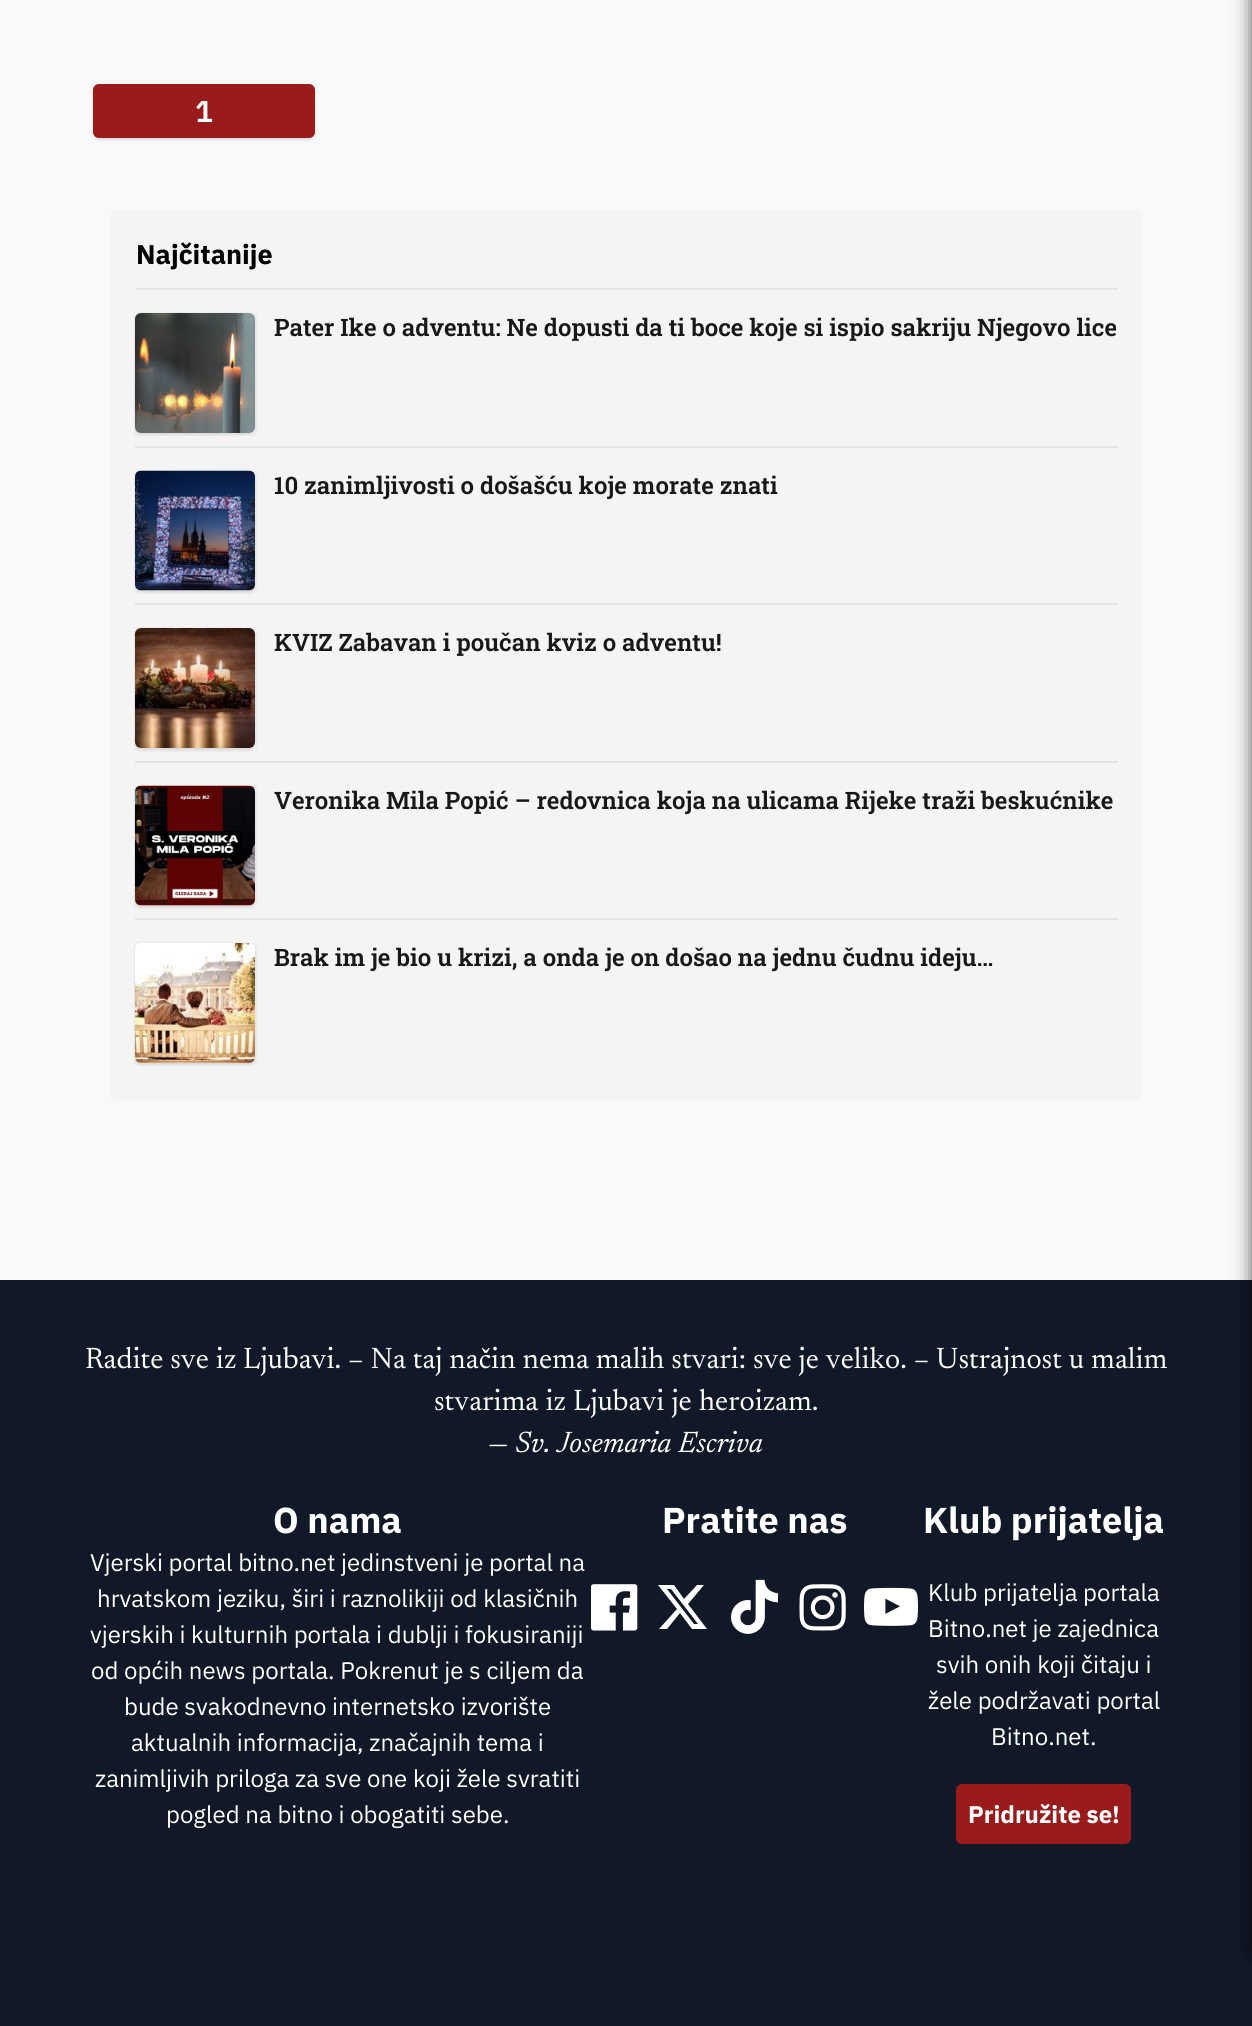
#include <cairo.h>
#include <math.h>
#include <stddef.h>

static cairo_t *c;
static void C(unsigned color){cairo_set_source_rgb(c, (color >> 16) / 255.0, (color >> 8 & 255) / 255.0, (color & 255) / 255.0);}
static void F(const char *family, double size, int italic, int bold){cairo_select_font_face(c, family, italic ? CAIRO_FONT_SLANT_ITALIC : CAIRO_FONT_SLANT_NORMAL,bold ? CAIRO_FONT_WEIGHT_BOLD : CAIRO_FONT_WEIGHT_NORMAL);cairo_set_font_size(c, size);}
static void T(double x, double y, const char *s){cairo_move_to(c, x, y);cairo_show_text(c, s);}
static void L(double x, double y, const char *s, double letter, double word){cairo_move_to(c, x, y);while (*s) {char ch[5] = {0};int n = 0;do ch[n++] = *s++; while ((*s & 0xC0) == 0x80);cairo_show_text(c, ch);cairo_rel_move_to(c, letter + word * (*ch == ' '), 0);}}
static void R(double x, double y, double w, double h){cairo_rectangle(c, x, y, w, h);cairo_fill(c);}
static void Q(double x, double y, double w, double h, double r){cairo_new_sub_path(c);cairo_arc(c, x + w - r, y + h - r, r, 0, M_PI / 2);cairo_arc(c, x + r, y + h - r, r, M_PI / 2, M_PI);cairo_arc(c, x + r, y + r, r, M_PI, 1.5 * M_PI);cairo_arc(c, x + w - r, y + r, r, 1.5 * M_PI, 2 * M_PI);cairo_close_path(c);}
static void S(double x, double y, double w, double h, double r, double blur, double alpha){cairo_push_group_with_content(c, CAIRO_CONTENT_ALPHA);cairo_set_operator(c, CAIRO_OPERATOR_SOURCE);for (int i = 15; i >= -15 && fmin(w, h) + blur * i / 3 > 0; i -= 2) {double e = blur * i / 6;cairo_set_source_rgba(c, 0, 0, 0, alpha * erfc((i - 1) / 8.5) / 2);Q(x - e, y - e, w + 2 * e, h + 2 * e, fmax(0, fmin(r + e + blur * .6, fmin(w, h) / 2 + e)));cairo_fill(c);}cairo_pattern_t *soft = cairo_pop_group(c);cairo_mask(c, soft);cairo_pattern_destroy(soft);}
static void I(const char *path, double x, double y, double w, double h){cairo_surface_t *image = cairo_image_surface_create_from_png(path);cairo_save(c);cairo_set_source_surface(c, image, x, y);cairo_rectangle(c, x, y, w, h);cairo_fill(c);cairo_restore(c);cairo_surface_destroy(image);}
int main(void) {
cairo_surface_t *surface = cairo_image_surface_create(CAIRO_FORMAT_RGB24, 1252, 2026);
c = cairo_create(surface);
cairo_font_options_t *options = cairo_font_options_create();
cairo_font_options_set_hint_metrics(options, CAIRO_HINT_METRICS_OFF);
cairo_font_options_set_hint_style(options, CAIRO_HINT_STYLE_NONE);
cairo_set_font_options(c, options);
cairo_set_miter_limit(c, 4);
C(0xf9f9f9);
cairo_paint(c);
C(0x000000);
S(95,87,219,51,5,1.5,.1);
S(93,86,222,54,6,2,.1);
C(0x991b1b);
Q(93,84,222,54,6);
cairo_fill(c);
F("IBM Plex Sans SemiBold",30,0,0);
C(0xffffff);
T(195,122,"1");
C(0xf4f4f5);
Q(111,210,1031,890,6);
cairo_fill(c);
C(0xe5e7eb);
R(135,288,983,2);
F("IBM Plex Sans",27,0,1);
C(0x000000);
T(136,264,"Najčitanije");
C(0xe4e4e7);
R(135,446,983,2);
I("1.png",134,312,124,124);
F("Roboto Slab SemiBold",24,0,0);
C(0x18181b);
T(274,336,"Pater Ike o adventu: Ne dopusti da ti boce koje si ispio sakriju Njegovo lice");
C(0xe4e4e7);
R(135,603,983,2);
I("2.png",134,470,124,124);
C(0x18181b);
T(274,494,"10 zanimljivosti o došašću koje morate znati");
C(0xe4e4e7);
R(135,761,983,2);
I("3.png",134,627,124,125);
C(0x18181b);
T(274,651,"KVIZ Zabavan i poučan kviz o adventu!");
C(0xe4e4e7);
R(135,918,983,2);
I("4.png",134,785,124,124);
C(0x18181b);
T(274,809,"Veronika Mila Popić – redovnica koja na ulicama Rijeke traži beskućnike");
I("5.png",134,942,124,124);
T(274,966,"Brak im je bio u krizi, a onda je on došao na jednu čudnu ideju…");
C(0x111827);
R(0,1280,1252,746);
C(0x000000);
S(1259,-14,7,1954,0,4.5,1);
S(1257,-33,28,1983,0,11,1);
F("Newsreader",30,0,0);
C(0xffffff);
L(85,1368,"Radite sve iz Ljubavi. – Na taj način nema malih stvari: sve je veliko. – Ustrajnost u malim",0,.25);
L(434,1410,"stvarima iz Ljubavi je heroizam.",0,.5);
T(488,1452,"—");
F("Newsreader",30,1,0);
T(515,1452,"Sv. Josemaria Escriva");
F("IBM Plex Sans",36,0,1);
T(273,1533,"O nama");
F("IBM Plex Sans",24,0,0);
T(90,1571,"Vjerski portal bitno.net jedinstveni je portal na");
T(97,1607,"hrvatskom jeziku, širi i raznolikiji od klasičnih");
T(90,1643,"vjerskih i kulturnih portala i dublji i fokusiraniji");
T(91,1679,"od općih news portala. Pokrenut je s ciljem da");
T(124,1715,"bude svakodnevno internetsko izvorište");
T(131,1751,"aktualnih informacija, značajnih tema i");
T(95,1787,"zanimljivih priloga za sve one koji žele svratiti");
T(166,1823,"pogled na bitno i obogatiti sebe.");
F("IBM Plex Sans",36,0,1);
T(662,1533,"Pratite nas");
I("6.png",591,1584,47,47);
cairo_new_path(c);
cairo_move_to(c,697,1585);
cairo_line_to(c,704,1585);
cairo_line_to(c,688,1604);
cairo_line_to(c,707,1629);
cairo_line_to(c,692,1629);
cairo_line_to(c,680,1613);
cairo_line_to(c,667,1629);
cairo_line_to(c,659,1629);
cairo_line_to(c,677,1609);
cairo_line_to(c,658,1585);
cairo_line_to(c,674,1585);
cairo_line_to(c,684,1599);
cairo_close_path(c);
cairo_move_to(c,694,1624);
cairo_line_to(c,698,1624);
cairo_line_to(c,671,1589);
cairo_line_to(c,667,1589);
cairo_close_path(c);
cairo_fill(c);
I("7.png",731,1579,47,55);
I("8.png",799,1584,47,47);
I("9.png",864,1587,54,39);
T(923,1533,"Klub prijatelja");
F("IBM Plex Sans",24,0,0);
T(928,1601,"Klub prijatelja portala");
T(928,1637,"Bitno.net je zajednica");
T(936,1673,"svih onih koji čitaju i");
T(928,1709,"žele podržavati portal");
T(991,1745,"Bitno.net.");
C(0x991b1b);
Q(956,1784,175,60,6);
cairo_fill(c);
F("IBM Plex Sans",24,0,1);
C(0xffffff);
T(968,1823,"Pridružite se!");
cairo_surface_write_to_png(surface, "o.png");
cairo_font_options_destroy(options);
cairo_destroy(c);
cairo_surface_destroy(surface);
return 0;
}
